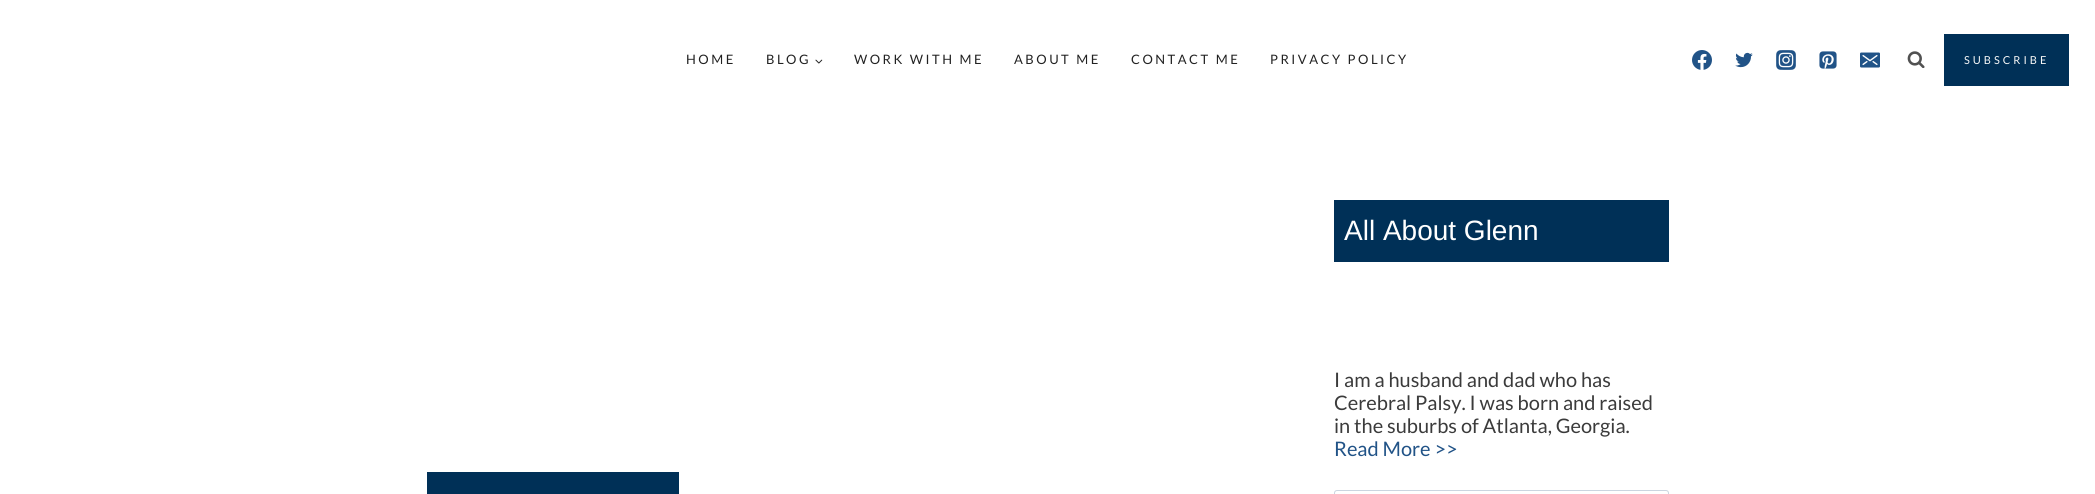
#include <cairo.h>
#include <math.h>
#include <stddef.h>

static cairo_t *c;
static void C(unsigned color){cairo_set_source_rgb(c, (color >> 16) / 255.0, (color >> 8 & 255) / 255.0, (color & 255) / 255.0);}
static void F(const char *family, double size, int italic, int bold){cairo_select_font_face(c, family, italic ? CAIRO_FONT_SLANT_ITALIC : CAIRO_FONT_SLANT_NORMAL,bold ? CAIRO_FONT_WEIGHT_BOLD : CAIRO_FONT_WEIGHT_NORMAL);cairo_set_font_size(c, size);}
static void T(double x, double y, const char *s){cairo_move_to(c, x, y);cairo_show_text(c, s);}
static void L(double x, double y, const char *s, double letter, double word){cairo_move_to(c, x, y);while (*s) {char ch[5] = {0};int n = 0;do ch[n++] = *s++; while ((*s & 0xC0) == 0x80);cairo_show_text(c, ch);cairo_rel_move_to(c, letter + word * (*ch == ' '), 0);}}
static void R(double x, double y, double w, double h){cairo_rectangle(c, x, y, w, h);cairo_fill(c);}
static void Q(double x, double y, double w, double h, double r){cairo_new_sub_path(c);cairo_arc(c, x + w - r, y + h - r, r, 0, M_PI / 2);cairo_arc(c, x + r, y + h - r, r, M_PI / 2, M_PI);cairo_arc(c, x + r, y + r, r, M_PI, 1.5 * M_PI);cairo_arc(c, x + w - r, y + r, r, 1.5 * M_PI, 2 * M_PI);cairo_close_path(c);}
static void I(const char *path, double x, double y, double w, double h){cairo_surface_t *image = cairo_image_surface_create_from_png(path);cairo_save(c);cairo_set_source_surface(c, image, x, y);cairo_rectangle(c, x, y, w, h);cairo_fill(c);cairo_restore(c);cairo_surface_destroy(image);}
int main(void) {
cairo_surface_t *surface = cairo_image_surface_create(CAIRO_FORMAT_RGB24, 2095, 494);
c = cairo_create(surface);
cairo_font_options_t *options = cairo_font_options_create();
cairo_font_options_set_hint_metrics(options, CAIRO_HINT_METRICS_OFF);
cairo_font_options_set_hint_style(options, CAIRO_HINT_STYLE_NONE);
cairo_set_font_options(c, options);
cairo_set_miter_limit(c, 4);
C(0xffffff);
cairo_paint(c);
F("Lato",13,0,0);
C(0x222222);
L(686,64,"HOME",2.5,0);
L(766,64,"BLOG",2.5,0);
I("1.png",815,59,8,5);
L(854,64,"WORK WITH ME",2.5,0);
L(1014,64,"ABOUT ME",2.5,0);
L(1131,64,"CONTACT ME",2.5,0);
L(1270,64,"PRIVACY POLICY",2.5,0);
I("2.png",1692,50,20,20);
I("3.png",1735,52,18,16);
I("4.png",1776,50,20,20);
I("5.png",1819,51,18,18);
I("6.png",1860,52,20,16);
I("7.png",1907,51,18,17);
C(0x003057);
R(1944,34,125,52);
F("Lato",11,0,0);
C(0xf7f7f7);
L(1964,64,"SUBSCRIBE",3,0);
C(0x003057);
R(1334,200,335,62);
F("Liberation Sans",28,0,0);
C(0xffffff);
T(1344,240,"All About Glenn");
F("Lato",20,0,0);
C(0x3b3b3b);
T(1334,387,"I am a husband and dad who has");
T(1334,410,"Cerebral Palsy. I was born and raised");
T(1334,433,"in the suburbs of Atlanta, Georgia.");
C(0x215387);
T(1334,456,"Read More >>");
Q(1334.5,490.5,334,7,2.5);
C(0xcbd5e0);
cairo_set_line_width(c,1);
cairo_stroke(c);
C(0x003057);
R(427,472,252,22);
cairo_surface_write_to_png(surface, "o.png");
cairo_font_options_destroy(options);
cairo_destroy(c);
cairo_surface_destroy(surface);
return 0;
}
